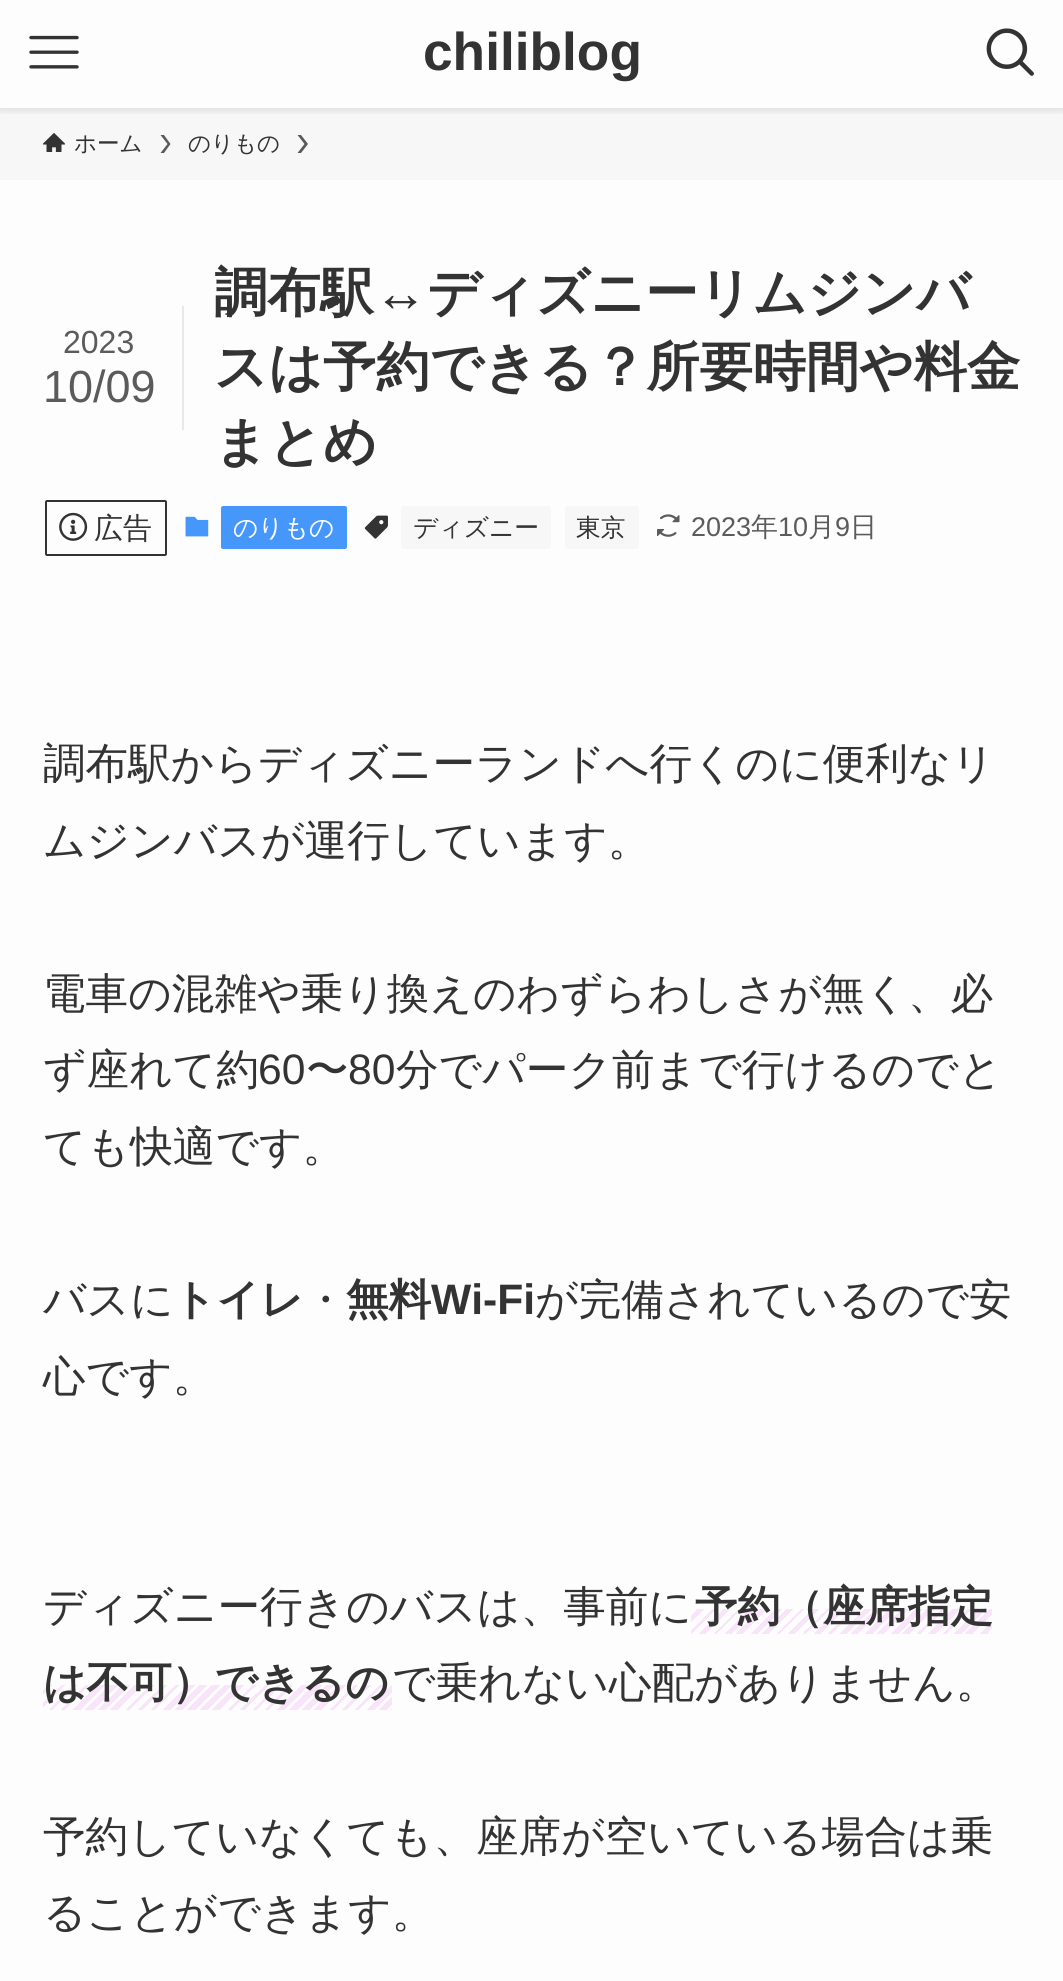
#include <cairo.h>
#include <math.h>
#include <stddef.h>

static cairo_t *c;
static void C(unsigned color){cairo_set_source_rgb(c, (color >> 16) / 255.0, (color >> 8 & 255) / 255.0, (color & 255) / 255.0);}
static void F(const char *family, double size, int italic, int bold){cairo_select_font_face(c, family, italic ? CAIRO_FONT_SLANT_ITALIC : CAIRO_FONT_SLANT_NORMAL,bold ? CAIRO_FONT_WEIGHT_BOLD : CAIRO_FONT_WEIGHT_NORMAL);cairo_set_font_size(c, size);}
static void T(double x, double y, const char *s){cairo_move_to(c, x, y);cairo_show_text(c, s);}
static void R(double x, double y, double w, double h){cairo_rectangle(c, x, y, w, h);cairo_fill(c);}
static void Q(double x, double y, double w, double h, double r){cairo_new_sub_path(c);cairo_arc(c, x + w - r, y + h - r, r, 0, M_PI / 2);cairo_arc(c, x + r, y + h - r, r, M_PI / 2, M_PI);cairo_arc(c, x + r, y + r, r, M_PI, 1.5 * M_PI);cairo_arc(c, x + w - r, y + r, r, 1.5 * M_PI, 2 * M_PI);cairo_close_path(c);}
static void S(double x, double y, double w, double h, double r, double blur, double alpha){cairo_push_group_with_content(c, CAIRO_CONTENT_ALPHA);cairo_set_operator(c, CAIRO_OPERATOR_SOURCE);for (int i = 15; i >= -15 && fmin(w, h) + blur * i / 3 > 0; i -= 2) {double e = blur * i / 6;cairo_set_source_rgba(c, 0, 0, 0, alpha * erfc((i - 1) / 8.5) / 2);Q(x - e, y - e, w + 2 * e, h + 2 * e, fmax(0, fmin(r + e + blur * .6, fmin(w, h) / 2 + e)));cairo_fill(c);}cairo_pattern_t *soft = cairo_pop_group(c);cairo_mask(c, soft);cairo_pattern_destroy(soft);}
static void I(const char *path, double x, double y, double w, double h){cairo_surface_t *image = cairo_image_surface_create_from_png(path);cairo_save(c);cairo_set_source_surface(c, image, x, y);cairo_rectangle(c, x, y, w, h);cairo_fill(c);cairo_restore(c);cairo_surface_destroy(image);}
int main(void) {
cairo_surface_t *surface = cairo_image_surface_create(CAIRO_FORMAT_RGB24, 1063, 1981);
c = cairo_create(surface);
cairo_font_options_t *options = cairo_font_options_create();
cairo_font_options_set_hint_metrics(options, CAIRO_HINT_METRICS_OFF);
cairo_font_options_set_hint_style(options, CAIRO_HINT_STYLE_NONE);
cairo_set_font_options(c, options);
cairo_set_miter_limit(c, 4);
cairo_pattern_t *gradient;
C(0xfdfdfd);
cairo_paint(c);
C(0xf7f7f7);
R(0,108,1063,72);
cairo_save(c);
cairo_rectangle(c,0,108,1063,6);
cairo_clip(c);
C(0x000000);
S(0,2,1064,108,0,4.5,.12);
cairo_restore(c);
I("1.png",29,35,50,34);
F("Liberation Sans",53.25,0,1);
C(0x333333);
T(423,70,"chiliblog");
I("2.png",986,28,48,48);
I("3.png",43,133,22,19);
F("WenQuanYi Zen Hei Medium",22.5,0,0);
T(74,151,"ホーム");
C(0x5a5a5a);
cairo_new_path(c);
cairo_move_to(c,164,135);
cairo_line_to(c,160.5,135);
cairo_line_to(c,167.5,144);
cairo_line_to(c,160.5,153);
cairo_line_to(c,164,153);
cairo_line_to(c,170.5,144);
cairo_close_path(c);
cairo_fill(c);
C(0x333333);
T(188,151,"のりもの");
C(0x5a5a5a);
cairo_new_path(c);
cairo_move_to(c,301,135);
cairo_line_to(c,297.5,135);
cairo_line_to(c,304.5,144);
cairo_line_to(c,297.5,153);
cairo_line_to(c,301,153);
cairo_line_to(c,308,144);
cairo_close_path(c);
cairo_fill(c);
C(0xe8e8e8);
R(182,306,2,124);
F("Liberation Sans",32,0,0);
C(0x5b5b5b);
T(63,353,"2023");
F("Liberation Sans",45,0,0);
T(43,402,"10/09");
F("WenQuanYi Zen Hei",53.25,0,1);
C(0x333333);
T(214,311,"調布駅");
F("Liberation Sans",53.25,0,1);
T(374,311,"↔");
F("WenQuanYi Zen Hei",53.25,0,1);
T(427,311,"ディズニーリムジンバ");
T(214,385,"スは予約できる？所要時間や料金");
T(214,460,"まとめ");
Q(46,501,120,54,1);
cairo_stroke(c);
I("4.png",59,512,29,29);
F("WenQuanYi Zen Hei Medium",29,0,0);
T(94,538,"広告");
I("5.png",185,516,24,21);
C(0x4697fb);
Q(221,506,126,43,2);
cairo_fill(c);
F("WenQuanYi Zen Hei Medium",24.75,0,0);
C(0xffffff);
T(233,536,"のりもの");
I("6.png",364,515,24,24);
C(0xf7f7f7);
Q(401,506,150,43,2);
cairo_fill(c);
C(0x333333);
T(413,536,"ディズニー");
C(0xf7f7f7);
Q(565,506,74,43,2);
cairo_fill(c);
C(0x333333);
T(576,536,"東京");
I("7.png",657,514,23,23);
F("Liberation Sans",27,0,0);
C(0x5b5b5b);
T(691,536,"2023");
F("WenQuanYi Zen Hei Medium",27,0,0);
T(751,536,"年");
F("Liberation Sans",27,0,0);
T(778,536,"10");
F("WenQuanYi Zen Hei Medium",27,0,0);
T(808,536,"月");
F("Liberation Sans",27,0,0);
T(835,536,"9");
F("WenQuanYi Zen Hei Medium",27,0,0);
T(850,536,"日");
F("WenQuanYi Zen Hei Medium",42.6,0,0);
C(0x333333);
T(43,778,"調布駅からディズニーランドへ行くのに便利なリ");
T(43,855,"ムジンバスが運行しています。");
T(43,1008,"電車の混雑や乗り換えのわずらわしさが無く、必");
T(43,1084,"ず座れて約");
F("Liberation Sans",42.6,0,0);
T(258,1084,"60");
F("WenQuanYi Zen Hei Medium",42.6,0,0);
T(306,1084,"〜");
F("Liberation Sans",42.6,0,0);
T(348,1084,"80");
F("WenQuanYi Zen Hei Medium",42.6,0,0);
T(396,1084,"分でパーク前まで行けるのでと");
T(43,1161,"ても快適です。");
T(43,1314,"バスに");
F("WenQuanYi Zen Hei",42.6,0,1);
T(173,1314,"トイレ");
F("WenQuanYi Zen Hei Medium",42.6,0,0);
T(304,1314,"・");
F("WenQuanYi Zen Hei",42.6,0,1);
T(346,1314,"無料");
F("Liberation Sans",42.6,0,1);
T(431,1314,"Wi-Fi");
F("WenQuanYi Zen Hei Medium",42.6,0,0);
T(535,1314,"が完備されているので安");
T(43,1391,"心です。");
T(43,1621,"ディズニー行きのバスは、事前に");
gradient = cairo_pattern_create_linear(931,1727,746,1542);
cairo_pattern_add_color_stop_rgba(gradient,0,0.976,0.898,0.976,1);
cairo_pattern_add_color_stop_rgba(gradient,.02,0.976,0.898,0.976,1);
cairo_pattern_add_color_stop_rgba(gradient,.02,0.992,0.992,0.992,1);
cairo_pattern_add_color_stop_rgba(gradient,.03,0.992,0.992,0.992,1);
cairo_pattern_add_color_stop_rgba(gradient,.03,0.976,0.898,0.976,1);
cairo_pattern_add_color_stop_rgba(gradient,.05,0.976,0.898,0.976,1);
cairo_pattern_add_color_stop_rgba(gradient,.05,0.992,0.992,0.992,1);
cairo_pattern_add_color_stop_rgba(gradient,.07,0.992,0.992,0.992,1);
cairo_pattern_add_color_stop_rgba(gradient,.07,0.976,0.898,0.976,1);
cairo_pattern_add_color_stop_rgba(gradient,.09,0.976,0.898,0.976,1);
cairo_pattern_add_color_stop_rgba(gradient,.09,0.992,0.992,0.992,1);
cairo_pattern_add_color_stop_rgba(gradient,.1,0.992,0.992,0.992,1);
cairo_pattern_add_color_stop_rgba(gradient,.1,0.976,0.898,0.976,1);
cairo_pattern_add_color_stop_rgba(gradient,.12,0.976,0.898,0.976,1);
cairo_pattern_add_color_stop_rgba(gradient,.12,0.992,0.992,0.992,1);
cairo_pattern_add_color_stop_rgba(gradient,.14,0.992,0.992,0.992,1);
cairo_pattern_add_color_stop_rgba(gradient,.14,0.976,0.898,0.976,1);
cairo_pattern_add_color_stop_rgba(gradient,.16,0.976,0.898,0.976,1);
cairo_pattern_add_color_stop_rgba(gradient,.16,0.992,0.992,0.992,1);
cairo_pattern_add_color_stop_rgba(gradient,.17,0.992,0.992,0.992,1);
cairo_pattern_add_color_stop_rgba(gradient,.17,0.976,0.898,0.976,1);
cairo_pattern_add_color_stop_rgba(gradient,.19,0.976,0.898,0.976,1);
cairo_pattern_add_color_stop_rgba(gradient,.19,0.992,0.992,0.992,1);
cairo_pattern_add_color_stop_rgba(gradient,.21,0.992,0.992,0.992,1);
cairo_pattern_add_color_stop_rgba(gradient,.21,0.976,0.898,0.976,1);
cairo_pattern_add_color_stop_rgba(gradient,.22,0.976,0.898,0.976,1);
cairo_pattern_add_color_stop_rgba(gradient,.22,0.992,0.992,0.992,1);
cairo_pattern_add_color_stop_rgba(gradient,.24,0.992,0.992,0.992,1);
cairo_pattern_add_color_stop_rgba(gradient,.24,0.976,0.898,0.976,1);
cairo_pattern_add_color_stop_rgba(gradient,.26,0.976,0.898,0.976,1);
cairo_pattern_add_color_stop_rgba(gradient,.26,0.992,0.992,0.992,1);
cairo_pattern_add_color_stop_rgba(gradient,.28,0.992,0.992,0.992,1);
cairo_pattern_add_color_stop_rgba(gradient,.28,0.976,0.898,0.976,1);
cairo_pattern_add_color_stop_rgba(gradient,.29,0.976,0.898,0.976,1);
cairo_pattern_add_color_stop_rgba(gradient,.29,0.992,0.992,0.992,1);
cairo_pattern_add_color_stop_rgba(gradient,.31,0.992,0.992,0.992,1);
cairo_pattern_add_color_stop_rgba(gradient,.31,0.976,0.898,0.976,1);
cairo_pattern_add_color_stop_rgba(gradient,.33,0.976,0.898,0.976,1);
cairo_pattern_add_color_stop_rgba(gradient,.33,0.992,0.992,0.992,1);
cairo_pattern_add_color_stop_rgba(gradient,.34,0.992,0.992,0.992,1);
cairo_pattern_add_color_stop_rgba(gradient,.34,0.976,0.898,0.976,1);
cairo_pattern_add_color_stop_rgba(gradient,.36,0.976,0.898,0.976,1);
cairo_pattern_add_color_stop_rgba(gradient,.36,0.992,0.992,0.992,1);
cairo_pattern_add_color_stop_rgba(gradient,.38,0.992,0.992,0.992,1);
cairo_pattern_add_color_stop_rgba(gradient,.38,0.976,0.898,0.976,1);
cairo_pattern_add_color_stop_rgba(gradient,.4,0.976,0.898,0.976,1);
cairo_pattern_add_color_stop_rgba(gradient,.4,0.992,0.992,0.992,1);
cairo_pattern_add_color_stop_rgba(gradient,.41,0.992,0.992,0.992,1);
cairo_pattern_add_color_stop_rgba(gradient,.41,0.976,0.898,0.976,1);
cairo_pattern_add_color_stop_rgba(gradient,.43,0.976,0.898,0.976,1);
cairo_pattern_add_color_stop_rgba(gradient,.43,0.992,0.992,0.992,1);
cairo_pattern_add_color_stop_rgba(gradient,.45,0.992,0.992,0.992,1);
cairo_pattern_add_color_stop_rgba(gradient,.45,0.976,0.898,0.976,1);
cairo_pattern_add_color_stop_rgba(gradient,.47,0.976,0.898,0.976,1);
cairo_pattern_add_color_stop_rgba(gradient,.47,0.992,0.992,0.992,1);
cairo_pattern_add_color_stop_rgba(gradient,.48,0.992,0.992,0.992,1);
cairo_pattern_add_color_stop_rgba(gradient,.48,0.976,0.898,0.976,1);
cairo_pattern_add_color_stop_rgba(gradient,.5,0.976,0.898,0.976,1);
cairo_pattern_add_color_stop_rgba(gradient,.5,0.992,0.992,0.992,1);
cairo_pattern_add_color_stop_rgba(gradient,.52,0.992,0.992,0.992,1);
cairo_pattern_add_color_stop_rgba(gradient,.52,0.976,0.898,0.976,1);
cairo_pattern_add_color_stop_rgba(gradient,.53,0.976,0.898,0.976,1);
cairo_pattern_add_color_stop_rgba(gradient,.53,0.992,0.992,0.992,1);
cairo_pattern_add_color_stop_rgba(gradient,.55,0.992,0.992,0.992,1);
cairo_pattern_add_color_stop_rgba(gradient,.55,0.976,0.898,0.976,1);
cairo_pattern_add_color_stop_rgba(gradient,.57,0.976,0.898,0.976,1);
cairo_pattern_add_color_stop_rgba(gradient,.57,0.992,0.992,0.992,1);
cairo_pattern_add_color_stop_rgba(gradient,.59,0.992,0.992,0.992,1);
cairo_pattern_add_color_stop_rgba(gradient,.59,0.976,0.898,0.976,1);
cairo_pattern_add_color_stop_rgba(gradient,.6,0.976,0.898,0.976,1);
cairo_pattern_add_color_stop_rgba(gradient,.6,0.992,0.992,0.992,1);
cairo_pattern_add_color_stop_rgba(gradient,.62,0.992,0.992,0.992,1);
cairo_pattern_add_color_stop_rgba(gradient,.62,0.976,0.898,0.976,1);
cairo_pattern_add_color_stop_rgba(gradient,.64,0.976,0.898,0.976,1);
cairo_pattern_add_color_stop_rgba(gradient,.64,0.992,0.992,0.992,1);
cairo_pattern_add_color_stop_rgba(gradient,.66,0.992,0.992,0.992,1);
cairo_pattern_add_color_stop_rgba(gradient,.66,0.976,0.898,0.976,1);
cairo_pattern_add_color_stop_rgba(gradient,.67,0.976,0.898,0.976,1);
cairo_pattern_add_color_stop_rgba(gradient,.67,0.992,0.992,0.992,1);
cairo_pattern_add_color_stop_rgba(gradient,.69,0.992,0.992,0.992,1);
cairo_pattern_add_color_stop_rgba(gradient,.69,0.976,0.898,0.976,1);
cairo_pattern_add_color_stop_rgba(gradient,.71,0.976,0.898,0.976,1);
cairo_pattern_add_color_stop_rgba(gradient,.71,0.992,0.992,0.992,1);
cairo_pattern_add_color_stop_rgba(gradient,.72,0.992,0.992,0.992,1);
cairo_pattern_add_color_stop_rgba(gradient,.72,0.976,0.898,0.976,1);
cairo_pattern_add_color_stop_rgba(gradient,.74,0.976,0.898,0.976,1);
cairo_pattern_add_color_stop_rgba(gradient,.74,0.992,0.992,0.992,1);
cairo_pattern_add_color_stop_rgba(gradient,.76,0.992,0.992,0.992,1);
cairo_pattern_add_color_stop_rgba(gradient,.76,0.976,0.898,0.976,1);
cairo_pattern_add_color_stop_rgba(gradient,.78,0.976,0.898,0.976,1);
cairo_pattern_add_color_stop_rgba(gradient,.78,0.992,0.992,0.992,1);
cairo_pattern_add_color_stop_rgba(gradient,.79,0.992,0.992,0.992,1);
cairo_pattern_add_color_stop_rgba(gradient,.79,0.976,0.898,0.976,1);
cairo_pattern_add_color_stop_rgba(gradient,.81,0.976,0.898,0.976,1);
cairo_pattern_add_color_stop_rgba(gradient,.81,0.992,0.992,0.992,1);
cairo_pattern_add_color_stop_rgba(gradient,.83,0.992,0.992,0.992,1);
cairo_pattern_add_color_stop_rgba(gradient,.83,0.976,0.898,0.976,1);
cairo_pattern_add_color_stop_rgba(gradient,.84,0.976,0.898,0.976,1);
cairo_pattern_add_color_stop_rgba(gradient,.84,0.992,0.992,0.992,1);
cairo_pattern_add_color_stop_rgba(gradient,.86,0.992,0.992,0.992,1);
cairo_pattern_add_color_stop_rgba(gradient,.86,0.976,0.898,0.976,1);
cairo_pattern_add_color_stop_rgba(gradient,.88,0.976,0.898,0.976,1);
cairo_pattern_add_color_stop_rgba(gradient,.88,0.992,0.992,0.992,1);
cairo_pattern_add_color_stop_rgba(gradient,.9,0.992,0.992,0.992,1);
cairo_pattern_add_color_stop_rgba(gradient,.9,0.976,0.898,0.976,1);
cairo_pattern_add_color_stop_rgba(gradient,.91,0.976,0.898,0.976,1);
cairo_pattern_add_color_stop_rgba(gradient,.91,0.992,0.992,0.992,1);
cairo_pattern_add_color_stop_rgba(gradient,.93,0.992,0.992,0.992,1);
cairo_pattern_add_color_stop_rgba(gradient,.93,0.976,0.898,0.976,1);
cairo_pattern_add_color_stop_rgba(gradient,.95,0.976,0.898,0.976,1);
cairo_pattern_add_color_stop_rgba(gradient,.95,0.992,0.992,0.992,1);
cairo_pattern_add_color_stop_rgba(gradient,.97,0.992,0.992,0.992,1);
cairo_pattern_add_color_stop_rgba(gradient,.97,0.976,0.898,0.976,1);
cairo_pattern_add_color_stop_rgba(gradient,.98,0.976,0.898,0.976,1);
cairo_pattern_add_color_stop_rgba(gradient,.98,0.992,0.992,0.992,1);
cairo_pattern_add_color_stop_rgba(gradient,1,0.992,0.992,0.992,1);
cairo_set_source(c,gradient);
cairo_pattern_destroy(gradient);
R(691,1609,301,25);
F("WenQuanYi Zen Hei",42.6,0,1);
C(0x333333);
T(695,1621,"予約（座席指定");
gradient = cairo_pattern_create_linear(318,1815,115,1611);
cairo_pattern_add_color_stop_rgba(gradient,0,0.976,0.898,0.976,1);
cairo_pattern_add_color_stop_rgba(gradient,.02,0.976,0.898,0.976,1);
cairo_pattern_add_color_stop_rgba(gradient,.02,0.992,0.992,0.992,1);
cairo_pattern_add_color_stop_rgba(gradient,.03,0.992,0.992,0.992,1);
cairo_pattern_add_color_stop_rgba(gradient,.03,0.976,0.898,0.976,1);
cairo_pattern_add_color_stop_rgba(gradient,.05,0.976,0.898,0.976,1);
cairo_pattern_add_color_stop_rgba(gradient,.05,0.992,0.992,0.992,1);
cairo_pattern_add_color_stop_rgba(gradient,.06,0.992,0.992,0.992,1);
cairo_pattern_add_color_stop_rgba(gradient,.06,0.976,0.898,0.976,1);
cairo_pattern_add_color_stop_rgba(gradient,.08,0.976,0.898,0.976,1);
cairo_pattern_add_color_stop_rgba(gradient,.08,0.992,0.992,0.992,1);
cairo_pattern_add_color_stop_rgba(gradient,.09,0.992,0.992,0.992,1);
cairo_pattern_add_color_stop_rgba(gradient,.09,0.976,0.898,0.976,1);
cairo_pattern_add_color_stop_rgba(gradient,.11,0.976,0.898,0.976,1);
cairo_pattern_add_color_stop_rgba(gradient,.11,0.992,0.992,0.992,1);
cairo_pattern_add_color_stop_rgba(gradient,.12,0.992,0.992,0.992,1);
cairo_pattern_add_color_stop_rgba(gradient,.12,0.976,0.898,0.976,1);
cairo_pattern_add_color_stop_rgba(gradient,.14,0.976,0.898,0.976,1);
cairo_pattern_add_color_stop_rgba(gradient,.14,0.992,0.992,0.992,1);
cairo_pattern_add_color_stop_rgba(gradient,.16,0.992,0.992,0.992,1);
cairo_pattern_add_color_stop_rgba(gradient,.16,0.976,0.898,0.976,1);
cairo_pattern_add_color_stop_rgba(gradient,.17,0.976,0.898,0.976,1);
cairo_pattern_add_color_stop_rgba(gradient,.17,0.992,0.992,0.992,1);
cairo_pattern_add_color_stop_rgba(gradient,.19,0.992,0.992,0.992,1);
cairo_pattern_add_color_stop_rgba(gradient,.19,0.976,0.898,0.976,1);
cairo_pattern_add_color_stop_rgba(gradient,.2,0.976,0.898,0.976,1);
cairo_pattern_add_color_stop_rgba(gradient,.2,0.992,0.992,0.992,1);
cairo_pattern_add_color_stop_rgba(gradient,.22,0.992,0.992,0.992,1);
cairo_pattern_add_color_stop_rgba(gradient,.22,0.976,0.898,0.976,1);
cairo_pattern_add_color_stop_rgba(gradient,.23,0.976,0.898,0.976,1);
cairo_pattern_add_color_stop_rgba(gradient,.23,0.992,0.992,0.992,1);
cairo_pattern_add_color_stop_rgba(gradient,.25,0.992,0.992,0.992,1);
cairo_pattern_add_color_stop_rgba(gradient,.25,0.976,0.898,0.976,1);
cairo_pattern_add_color_stop_rgba(gradient,.27,0.976,0.898,0.976,1);
cairo_pattern_add_color_stop_rgba(gradient,.27,0.992,0.992,0.992,1);
cairo_pattern_add_color_stop_rgba(gradient,.28,0.992,0.992,0.992,1);
cairo_pattern_add_color_stop_rgba(gradient,.28,0.976,0.898,0.976,1);
cairo_pattern_add_color_stop_rgba(gradient,.3,0.976,0.898,0.976,1);
cairo_pattern_add_color_stop_rgba(gradient,.3,0.992,0.992,0.992,1);
cairo_pattern_add_color_stop_rgba(gradient,.31,0.992,0.992,0.992,1);
cairo_pattern_add_color_stop_rgba(gradient,.31,0.976,0.898,0.976,1);
cairo_pattern_add_color_stop_rgba(gradient,.33,0.976,0.898,0.976,1);
cairo_pattern_add_color_stop_rgba(gradient,.33,0.992,0.992,0.992,1);
cairo_pattern_add_color_stop_rgba(gradient,.34,0.992,0.992,0.992,1);
cairo_pattern_add_color_stop_rgba(gradient,.34,0.976,0.898,0.976,1);
cairo_pattern_add_color_stop_rgba(gradient,.36,0.976,0.898,0.976,1);
cairo_pattern_add_color_stop_rgba(gradient,.36,0.992,0.992,0.992,1);
cairo_pattern_add_color_stop_rgba(gradient,.38,0.992,0.992,0.992,1);
cairo_pattern_add_color_stop_rgba(gradient,.38,0.976,0.898,0.976,1);
cairo_pattern_add_color_stop_rgba(gradient,.39,0.976,0.898,0.976,1);
cairo_pattern_add_color_stop_rgba(gradient,.39,0.992,0.992,0.992,1);
cairo_pattern_add_color_stop_rgba(gradient,.41,0.992,0.992,0.992,1);
cairo_pattern_add_color_stop_rgba(gradient,.41,0.976,0.898,0.976,1);
cairo_pattern_add_color_stop_rgba(gradient,.42,0.976,0.898,0.976,1);
cairo_pattern_add_color_stop_rgba(gradient,.42,0.992,0.992,0.992,1);
cairo_pattern_add_color_stop_rgba(gradient,.44,0.992,0.992,0.992,1);
cairo_pattern_add_color_stop_rgba(gradient,.44,0.976,0.898,0.976,1);
cairo_pattern_add_color_stop_rgba(gradient,.45,0.976,0.898,0.976,1);
cairo_pattern_add_color_stop_rgba(gradient,.45,0.992,0.992,0.992,1);
cairo_pattern_add_color_stop_rgba(gradient,.47,0.992,0.992,0.992,1);
cairo_pattern_add_color_stop_rgba(gradient,.47,0.976,0.898,0.976,1);
cairo_pattern_add_color_stop_rgba(gradient,.48,0.976,0.898,0.976,1);
cairo_pattern_add_color_stop_rgba(gradient,.48,0.992,0.992,0.992,1);
cairo_pattern_add_color_stop_rgba(gradient,.5,0.992,0.992,0.992,1);
cairo_pattern_add_color_stop_rgba(gradient,.5,0.976,0.898,0.976,1);
cairo_pattern_add_color_stop_rgba(gradient,.52,0.976,0.898,0.976,1);
cairo_pattern_add_color_stop_rgba(gradient,.52,0.992,0.992,0.992,1);
cairo_pattern_add_color_stop_rgba(gradient,.53,0.992,0.992,0.992,1);
cairo_pattern_add_color_stop_rgba(gradient,.53,0.976,0.898,0.976,1);
cairo_pattern_add_color_stop_rgba(gradient,.55,0.976,0.898,0.976,1);
cairo_pattern_add_color_stop_rgba(gradient,.55,0.992,0.992,0.992,1);
cairo_pattern_add_color_stop_rgba(gradient,.56,0.992,0.992,0.992,1);
cairo_pattern_add_color_stop_rgba(gradient,.56,0.976,0.898,0.976,1);
cairo_pattern_add_color_stop_rgba(gradient,.58,0.976,0.898,0.976,1);
cairo_pattern_add_color_stop_rgba(gradient,.58,0.992,0.992,0.992,1);
cairo_pattern_add_color_stop_rgba(gradient,.59,0.992,0.992,0.992,1);
cairo_pattern_add_color_stop_rgba(gradient,.59,0.976,0.898,0.976,1);
cairo_pattern_add_color_stop_rgba(gradient,.61,0.976,0.898,0.976,1);
cairo_pattern_add_color_stop_rgba(gradient,.61,0.992,0.992,0.992,1);
cairo_pattern_add_color_stop_rgba(gradient,.62,0.992,0.992,0.992,1);
cairo_pattern_add_color_stop_rgba(gradient,.62,0.976,0.898,0.976,1);
cairo_pattern_add_color_stop_rgba(gradient,.64,0.976,0.898,0.976,1);
cairo_pattern_add_color_stop_rgba(gradient,.64,0.992,0.992,0.992,1);
cairo_pattern_add_color_stop_rgba(gradient,.66,0.992,0.992,0.992,1);
cairo_pattern_add_color_stop_rgba(gradient,.66,0.976,0.898,0.976,1);
cairo_pattern_add_color_stop_rgba(gradient,.67,0.976,0.898,0.976,1);
cairo_pattern_add_color_stop_rgba(gradient,.67,0.992,0.992,0.992,1);
cairo_pattern_add_color_stop_rgba(gradient,.69,0.992,0.992,0.992,1);
cairo_pattern_add_color_stop_rgba(gradient,.69,0.976,0.898,0.976,1);
cairo_pattern_add_color_stop_rgba(gradient,.7,0.976,0.898,0.976,1);
cairo_pattern_add_color_stop_rgba(gradient,.7,0.992,0.992,0.992,1);
cairo_pattern_add_color_stop_rgba(gradient,.72,0.992,0.992,0.992,1);
cairo_pattern_add_color_stop_rgba(gradient,.72,0.976,0.898,0.976,1);
cairo_pattern_add_color_stop_rgba(gradient,.73,0.976,0.898,0.976,1);
cairo_pattern_add_color_stop_rgba(gradient,.73,0.992,0.992,0.992,1);
cairo_pattern_add_color_stop_rgba(gradient,.75,0.992,0.992,0.992,1);
cairo_pattern_add_color_stop_rgba(gradient,.75,0.976,0.898,0.976,1);
cairo_pattern_add_color_stop_rgba(gradient,.77,0.976,0.898,0.976,1);
cairo_pattern_add_color_stop_rgba(gradient,.77,0.992,0.992,0.992,1);
cairo_pattern_add_color_stop_rgba(gradient,.78,0.992,0.992,0.992,1);
cairo_pattern_add_color_stop_rgba(gradient,.78,0.976,0.898,0.976,1);
cairo_pattern_add_color_stop_rgba(gradient,.8,0.976,0.898,0.976,1);
cairo_pattern_add_color_stop_rgba(gradient,.8,0.992,0.992,0.992,1);
cairo_pattern_add_color_stop_rgba(gradient,.81,0.992,0.992,0.992,1);
cairo_pattern_add_color_stop_rgba(gradient,.81,0.976,0.898,0.976,1);
cairo_pattern_add_color_stop_rgba(gradient,.83,0.976,0.898,0.976,1);
cairo_pattern_add_color_stop_rgba(gradient,.83,0.992,0.992,0.992,1);
cairo_pattern_add_color_stop_rgba(gradient,.84,0.992,0.992,0.992,1);
cairo_pattern_add_color_stop_rgba(gradient,.84,0.976,0.898,0.976,1);
cairo_pattern_add_color_stop_rgba(gradient,.86,0.976,0.898,0.976,1);
cairo_pattern_add_color_stop_rgba(gradient,.86,0.992,0.992,0.992,1);
cairo_pattern_add_color_stop_rgba(gradient,.88,0.992,0.992,0.992,1);
cairo_pattern_add_color_stop_rgba(gradient,.88,0.976,0.898,0.976,1);
cairo_pattern_add_color_stop_rgba(gradient,.89,0.976,0.898,0.976,1);
cairo_pattern_add_color_stop_rgba(gradient,.89,0.992,0.992,0.992,1);
cairo_pattern_add_color_stop_rgba(gradient,.91,0.992,0.992,0.992,1);
cairo_pattern_add_color_stop_rgba(gradient,.91,0.976,0.898,0.976,1);
cairo_pattern_add_color_stop_rgba(gradient,.92,0.976,0.898,0.976,1);
cairo_pattern_add_color_stop_rgba(gradient,.92,0.992,0.992,0.992,1);
cairo_pattern_add_color_stop_rgba(gradient,.94,0.992,0.992,0.992,1);
cairo_pattern_add_color_stop_rgba(gradient,.94,0.976,0.898,0.976,1);
cairo_pattern_add_color_stop_rgba(gradient,.95,0.976,0.898,0.976,1);
cairo_pattern_add_color_stop_rgba(gradient,.95,0.992,0.992,0.992,1);
cairo_pattern_add_color_stop_rgba(gradient,.97,0.992,0.992,0.992,1);
cairo_pattern_add_color_stop_rgba(gradient,.97,0.976,0.898,0.976,1);
cairo_pattern_add_color_stop_rgba(gradient,.98,0.976,0.898,0.976,1);
cairo_pattern_add_color_stop_rgba(gradient,.98,0.992,0.992,0.992,1);
cairo_pattern_add_color_stop_rgba(gradient,1,0.992,0.992,0.992,1);
cairo_set_source(c,gradient);
cairo_pattern_destroy(gradient);
R(43,1685,349,25);
C(0x333333);
T(43,1697,"は不可）できるの");
F("WenQuanYi Zen Hei Medium",42.6,0,0);
T(392,1697,"で乗れない心配がありません。");
T(43,1851,"予約していなくても、座席が空いている場合は乗");
T(43,1927,"ることができます。");
cairo_surface_write_to_png(surface, "o.png");
cairo_font_options_destroy(options);
cairo_destroy(c);
cairo_surface_destroy(surface);
return 0;
}
